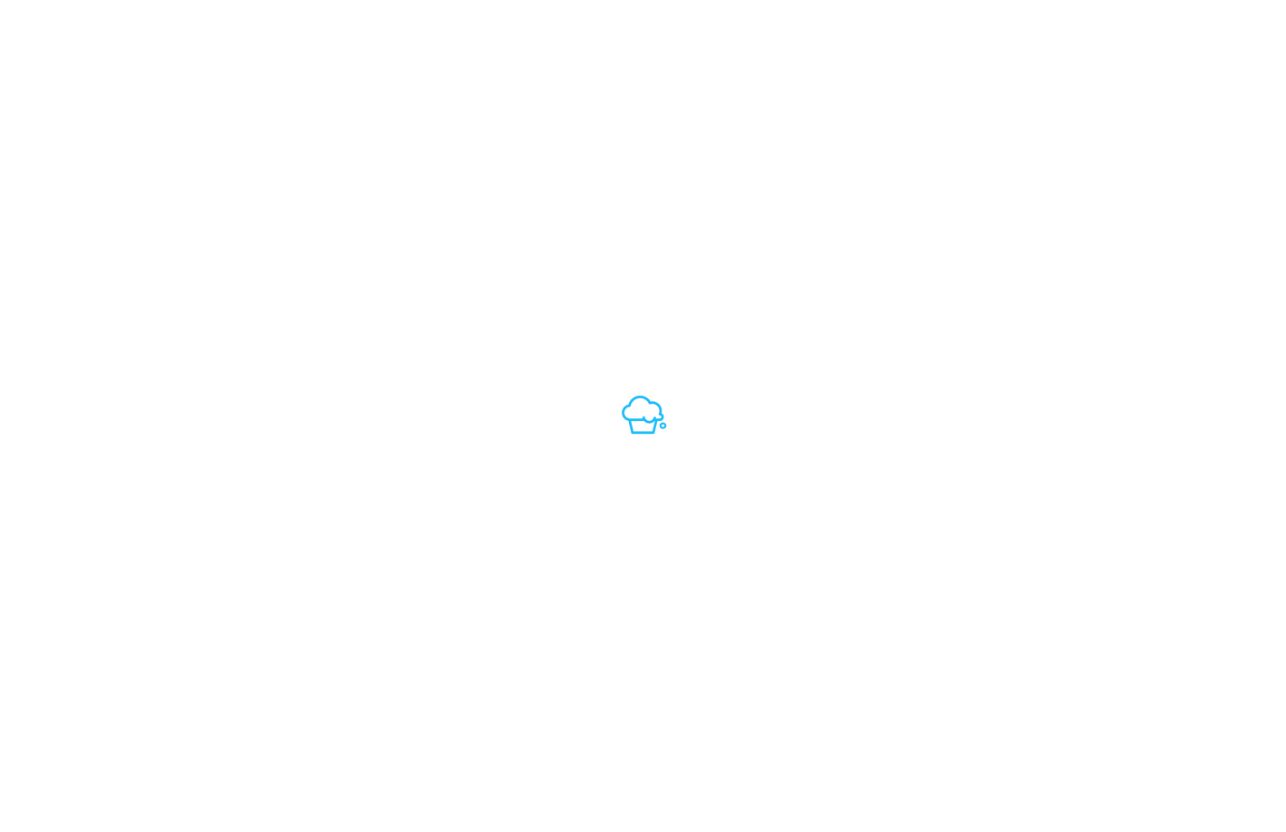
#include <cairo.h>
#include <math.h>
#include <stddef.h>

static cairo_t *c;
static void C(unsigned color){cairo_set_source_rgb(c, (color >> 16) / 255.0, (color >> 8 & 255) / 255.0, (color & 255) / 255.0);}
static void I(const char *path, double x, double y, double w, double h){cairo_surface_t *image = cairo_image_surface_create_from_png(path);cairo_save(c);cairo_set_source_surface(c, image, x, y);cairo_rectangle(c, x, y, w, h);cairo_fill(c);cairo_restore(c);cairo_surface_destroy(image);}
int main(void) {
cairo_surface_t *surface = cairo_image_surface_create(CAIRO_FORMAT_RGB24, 1286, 832);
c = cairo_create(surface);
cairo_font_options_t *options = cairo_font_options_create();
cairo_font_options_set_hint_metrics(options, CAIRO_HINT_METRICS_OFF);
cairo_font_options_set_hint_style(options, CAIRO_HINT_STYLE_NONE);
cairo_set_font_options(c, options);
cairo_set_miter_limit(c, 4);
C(0xffffff);
cairo_paint(c);
I("1.png",621,395,46,40);
cairo_surface_write_to_png(surface, "o.png");
cairo_font_options_destroy(options);
cairo_destroy(c);
cairo_surface_destroy(surface);
return 0;
}
